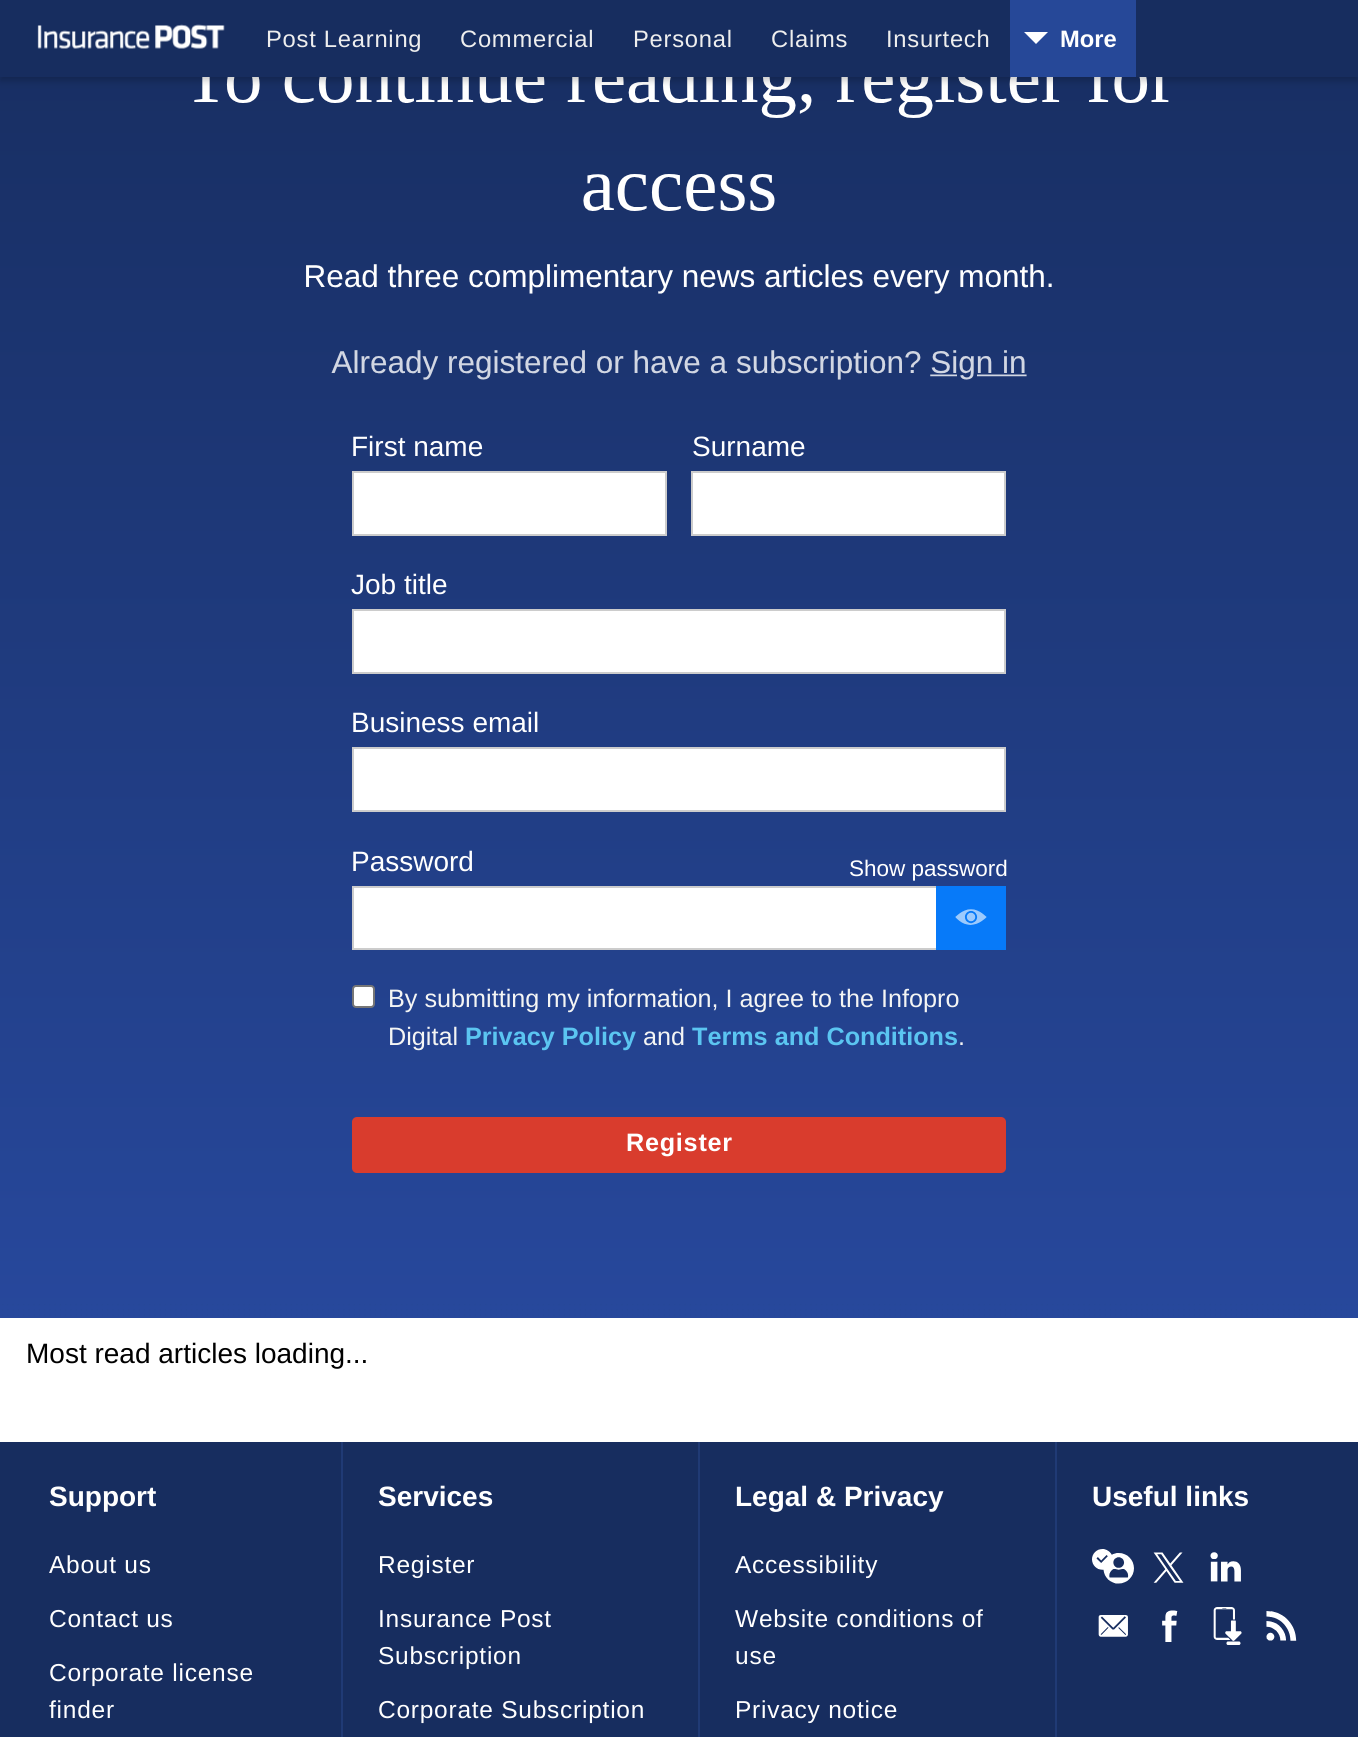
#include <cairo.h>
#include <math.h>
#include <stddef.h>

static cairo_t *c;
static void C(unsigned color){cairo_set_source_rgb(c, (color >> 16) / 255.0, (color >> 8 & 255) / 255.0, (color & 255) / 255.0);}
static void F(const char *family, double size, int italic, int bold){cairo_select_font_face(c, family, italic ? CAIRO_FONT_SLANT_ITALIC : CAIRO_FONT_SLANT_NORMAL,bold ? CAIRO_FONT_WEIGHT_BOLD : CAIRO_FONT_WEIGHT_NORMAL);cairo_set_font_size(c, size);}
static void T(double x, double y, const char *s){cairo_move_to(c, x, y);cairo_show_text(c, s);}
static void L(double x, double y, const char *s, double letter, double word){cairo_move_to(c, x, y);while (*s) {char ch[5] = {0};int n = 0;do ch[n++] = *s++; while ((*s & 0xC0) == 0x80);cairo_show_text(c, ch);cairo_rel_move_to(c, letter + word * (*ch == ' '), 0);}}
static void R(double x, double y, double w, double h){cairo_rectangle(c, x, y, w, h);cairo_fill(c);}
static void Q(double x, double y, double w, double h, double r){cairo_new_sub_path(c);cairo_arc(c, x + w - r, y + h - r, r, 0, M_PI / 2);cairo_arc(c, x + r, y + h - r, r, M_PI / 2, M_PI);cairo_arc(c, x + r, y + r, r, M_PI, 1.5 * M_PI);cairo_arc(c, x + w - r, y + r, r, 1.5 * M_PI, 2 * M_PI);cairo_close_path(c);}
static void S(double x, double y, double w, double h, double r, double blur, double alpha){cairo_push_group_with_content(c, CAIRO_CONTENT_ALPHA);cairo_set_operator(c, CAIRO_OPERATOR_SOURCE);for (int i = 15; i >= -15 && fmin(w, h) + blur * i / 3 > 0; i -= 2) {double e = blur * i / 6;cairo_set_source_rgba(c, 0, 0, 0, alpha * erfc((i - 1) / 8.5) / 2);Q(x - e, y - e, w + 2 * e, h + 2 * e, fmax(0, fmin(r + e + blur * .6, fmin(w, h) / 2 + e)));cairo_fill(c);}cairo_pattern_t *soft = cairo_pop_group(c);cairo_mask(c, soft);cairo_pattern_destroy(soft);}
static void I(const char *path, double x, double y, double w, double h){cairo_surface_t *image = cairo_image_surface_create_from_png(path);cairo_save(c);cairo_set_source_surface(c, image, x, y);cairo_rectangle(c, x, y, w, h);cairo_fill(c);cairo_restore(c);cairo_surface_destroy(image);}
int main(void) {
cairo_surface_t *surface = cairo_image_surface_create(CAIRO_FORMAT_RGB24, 1358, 1737);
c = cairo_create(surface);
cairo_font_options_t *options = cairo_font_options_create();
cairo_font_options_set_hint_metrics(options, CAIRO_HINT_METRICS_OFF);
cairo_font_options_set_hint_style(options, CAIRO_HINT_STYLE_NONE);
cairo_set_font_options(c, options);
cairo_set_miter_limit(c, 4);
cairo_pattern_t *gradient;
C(0xffffff);
cairo_paint(c);
gradient = cairo_pattern_create_linear(679,-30,679,1318);
cairo_pattern_add_color_stop_rgba(gradient,0,0.09,0.176,0.373,1);
cairo_pattern_add_color_stop_rgba(gradient,1,0.153,0.282,0.612,1);
cairo_set_source(c,gradient);
cairo_pattern_destroy(gradient);
R(0,77,1358,1241);
I("2.png",194,77,975,303);
C(0x000000);
S(0,4,1358,77,0,3.5,.2);
C(0x172d5f);
R(0,0,1358,77);
I("1.png",37,24,188,25);
F("Arimo",23.75,0,0);
C(0xeeeeee);
L(266,47,"Post Learning",.75,0);
L(460,47,"Commercial",.75,0);
L(633,47,"Personal",.75,0);
L(771,47,"Claims",.75,0);
L(886,47,"Insurtech",.75,0);
C(0x264898);
R(1010,0,126,77);
cairo_save(c);
cairo_rectangle(c,1024,32,24,14);
cairo_clip(c);
C(0xffffff);
cairo_new_path(c);
cairo_move_to(c,1048,105);
cairo_line_to(c,1024,105);
cairo_line_to(c,1036,93);
cairo_close_path(c);
cairo_move_to(c,1024,32);
cairo_line_to(c,1048,32);
cairo_line_to(c,1036,44);
cairo_close_path(c);
cairo_fill(c);
cairo_restore(c);
F("Arimo",23.75,0,1);
C(0xffffff);
T(1060,47,"More");
F("Arimo",28,0,0);
T(351,456,"First name");
cairo_rectangle(c,353,472,313,63);
cairo_fill_preserve(c);
C(0xcccccc);
cairo_stroke(c);
C(0xffffff);
T(692,456,"Surname");
cairo_rectangle(c,692,472,313,63);
cairo_fill_preserve(c);
C(0xcccccc);
cairo_stroke(c);
C(0xffffff);
T(351,594,"Job title");
cairo_rectangle(c,353,610,652,63);
cairo_fill_preserve(c);
C(0xcccccc);
cairo_stroke(c);
C(0xffffff);
T(351,732,"Business email");
cairo_rectangle(c,353,748,652,63);
cairo_fill_preserve(c);
C(0xcccccc);
cairo_stroke(c);
C(0xffffff);
T(351,871,"Password");
F("Arimo",22.5,0,0);
T(849,876,"Show password");
R(354,888,582,60);
cairo_rectangle(c,353,887,652,62);
C(0xcccccc);
cairo_stroke(c);
C(0x077af9);
R(936,886,70,64);
I("3.png",955,909,32,16);
C(0xffffff);
Q(353,986,21,21,3);
cairo_fill_preserve(c);
C(0x767676);
cairo_stroke(c);
F("Arimo",25.2,0,0);
C(0xf4f5f4);
T(388,1007,"By submitting my information, I agree to the Infopro");
T(388,1045,"Digital");
F("Arimo",25.2,0,1);
C(0x5bc5f1);
T(465,1045,"Privacy Policy");
F("Arimo",25.2,0,0);
C(0xf4f5f4);
T(643,1045,"and");
F("Arimo",25.2,0,1);
C(0x5bc5f1);
T(692,1045,"Terms and Conditions");
F("Arimo",25.2,0,0);
C(0xf4f5f4);
T(958,1045,".");
C(0xd93c2d);
Q(352,1117,654,56,5);
cairo_fill(c);
F("Arimo",25.2,0,1);
C(0xffffff);
L(626,1151,"Register",.75,0);
cairo_new_path(c);
cairo_move_to(c,2.6,1304.6);
cairo_line_to(c,1357.5,1304.6);
C(0x264898);
cairo_set_line_width(c,1.5);
cairo_set_line_cap(c,CAIRO_LINE_CAP_ROUND);
cairo_set_dash(c,(double[]){0,5.25},2,0);
cairo_stroke(c);
cairo_new_path(c);
cairo_move_to(c,2.6,1309.9);
cairo_line_to(c,1357.5,1309.9);
cairo_stroke(c);
cairo_new_path(c);
cairo_move_to(c,2.6,1315.1);
cairo_line_to(c,1357.5,1315.1);
cairo_stroke(c);
F("Arimo",28,0,0);
C(0x000000);
T(26,1363,"Most read articles loading...");
C(0x172d5f);
R(0,1442,1358,295);
C(0x203a75);
R(341,1442,2,295);
F("Arimo",28,0,1);
C(0xffffff);
T(49,1506,"Support");
F("Arimo",24.5,0,0);
L(49,1573,"About us",.75,0);
L(49,1627,"Contact us",.75,0);
L(49,1681,"Corporate license",.75,0);
L(49,1718,"finder",.75,0);
C(0x203a75);
R(698,1442,2,295);
F("Arimo",28,0,1);
C(0xffffff);
T(378,1506,"Services");
F("Arimo",24.5,0,0);
L(378,1573,"Register",.75,0);
L(378,1627,"Insurance Post",.75,0);
L(378,1664,"Subscription",.75,0);
L(378,1718,"Corporate Subscription",.75,0);
C(0x203a75);
R(1055,1442,2,295);
F("Arimo",28,0,1);
C(0xffffff);
T(735,1506,"Legal & Privacy");
F("Arimo",24.5,0,0);
L(735,1573,"Accessibility",.75,0);
L(735,1627,"Website conditions of",.75,0);
L(735,1664,"use",.75,0);
L(735,1718,"Privacy notice",.75,0);
F("Arimo",28,0,1);
T(1092,1506,"Useful links");
I("4.png",1092,1549,42,35);
I("5.png",1153,1552,31,31);
I("6.png",1210,1552,31,30);
I("7.png",1098,1615,30,22);
I("8.png",1162,1610,16,32);
I("9.png",1213,1607,29,38);
I("10.png",1266,1611,31,30);
cairo_surface_write_to_png(surface, "o.png");
cairo_font_options_destroy(options);
cairo_destroy(c);
cairo_surface_destroy(surface);
return 0;
}
